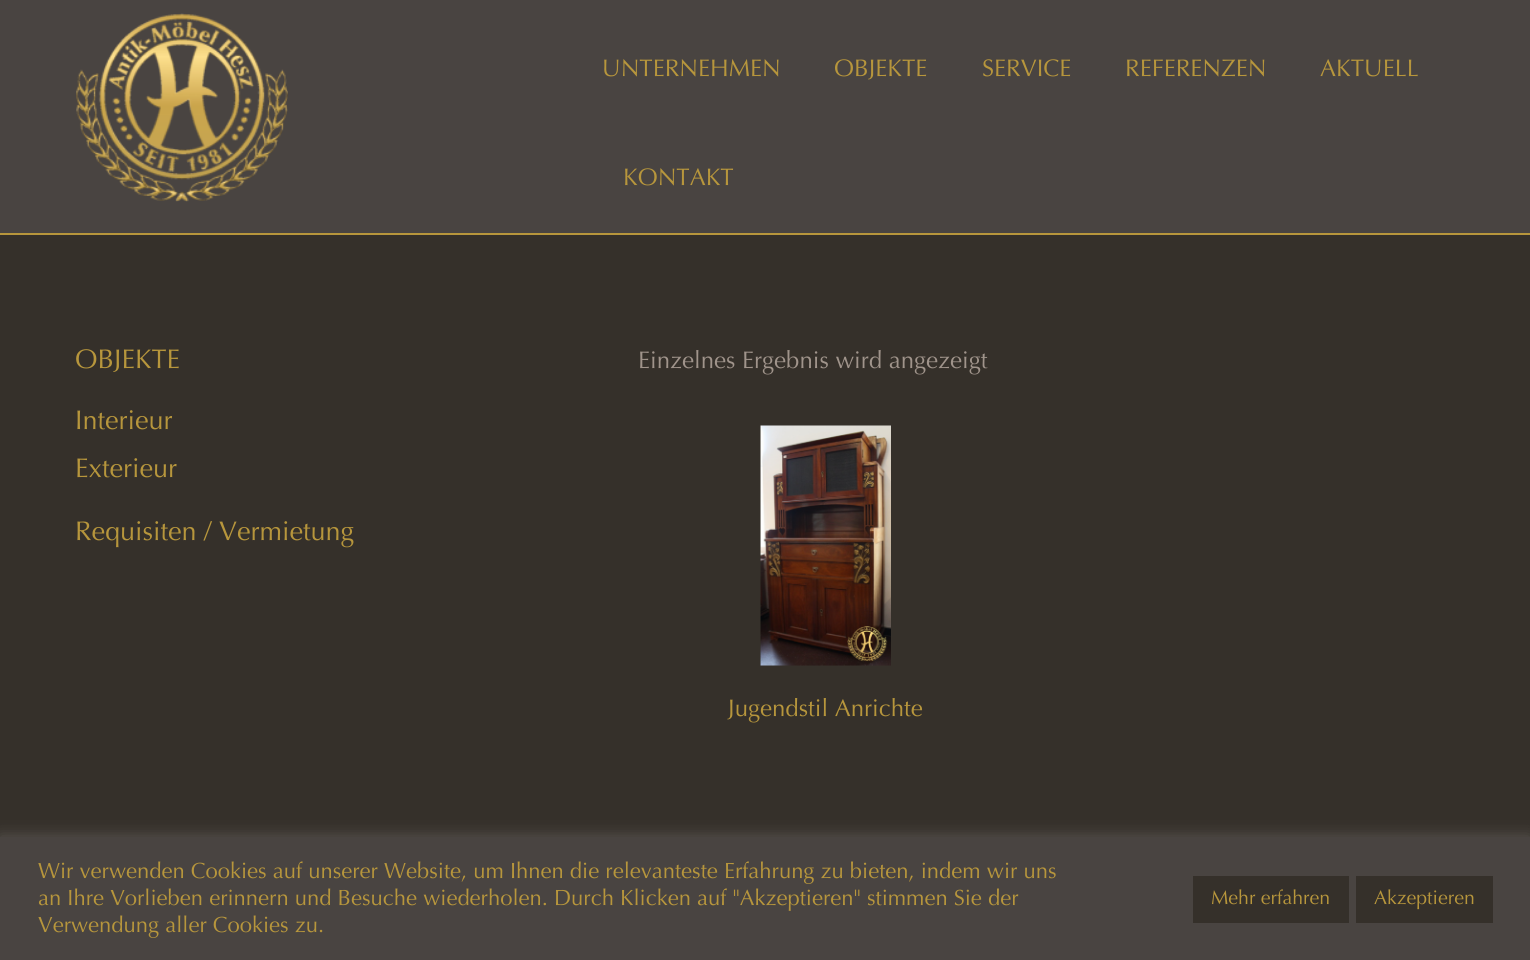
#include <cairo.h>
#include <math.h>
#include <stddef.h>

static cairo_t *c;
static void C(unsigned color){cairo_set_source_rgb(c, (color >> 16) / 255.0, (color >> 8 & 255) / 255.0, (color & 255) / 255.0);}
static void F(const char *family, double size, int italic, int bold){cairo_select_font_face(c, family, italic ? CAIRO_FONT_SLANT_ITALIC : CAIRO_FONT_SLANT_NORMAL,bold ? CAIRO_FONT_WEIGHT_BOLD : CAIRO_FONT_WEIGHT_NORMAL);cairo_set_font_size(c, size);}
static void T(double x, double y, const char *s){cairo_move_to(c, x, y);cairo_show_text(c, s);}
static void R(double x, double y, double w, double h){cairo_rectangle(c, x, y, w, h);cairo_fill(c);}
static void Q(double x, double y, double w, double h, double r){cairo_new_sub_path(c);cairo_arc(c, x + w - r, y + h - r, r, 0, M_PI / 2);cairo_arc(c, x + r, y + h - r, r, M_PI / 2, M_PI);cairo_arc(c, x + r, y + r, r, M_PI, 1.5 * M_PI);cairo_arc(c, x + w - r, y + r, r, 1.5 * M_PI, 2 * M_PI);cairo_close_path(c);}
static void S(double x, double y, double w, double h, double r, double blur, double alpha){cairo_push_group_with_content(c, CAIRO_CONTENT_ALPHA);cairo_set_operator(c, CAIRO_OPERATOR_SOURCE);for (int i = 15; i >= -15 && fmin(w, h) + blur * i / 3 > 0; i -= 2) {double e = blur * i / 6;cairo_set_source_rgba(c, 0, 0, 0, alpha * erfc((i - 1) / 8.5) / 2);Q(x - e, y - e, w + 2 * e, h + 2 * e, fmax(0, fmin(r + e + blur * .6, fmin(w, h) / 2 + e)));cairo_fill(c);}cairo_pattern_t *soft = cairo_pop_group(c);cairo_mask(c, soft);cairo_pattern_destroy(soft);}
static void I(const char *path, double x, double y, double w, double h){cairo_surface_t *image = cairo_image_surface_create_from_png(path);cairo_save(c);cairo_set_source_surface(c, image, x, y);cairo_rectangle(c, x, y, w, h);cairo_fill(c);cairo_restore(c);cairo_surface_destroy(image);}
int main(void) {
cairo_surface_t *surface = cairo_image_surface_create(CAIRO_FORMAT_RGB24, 1530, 960);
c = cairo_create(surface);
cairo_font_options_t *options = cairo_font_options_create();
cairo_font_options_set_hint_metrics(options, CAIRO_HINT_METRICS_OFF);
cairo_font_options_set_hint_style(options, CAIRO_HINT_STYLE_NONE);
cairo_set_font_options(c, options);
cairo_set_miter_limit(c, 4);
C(0x35302a);
cairo_paint(c);
C(0x494441);
R(0,0,1530,233);
C(0xb7963c);
R(0,233,1530,2);
I("1.png",76,13,212,189);
F("Optima Medium",24,0,0);
T(602,76,"UNTERNEHMEN");
T(834,76,"OBJEKTE");
T(982,76,"SERVICE");
T(1125,76,"REFERENZEN");
T(1320,76,"AKTUELL");
T(623,185,"KONTAKT");
F("Optima Medium",27,0,0);
T(75,368,"OBJEKTE");
T(75,429,"Interieur");
T(75,477,"Exterieur");
T(75,540,"Requisiten / Vermietung");
F("Optima Medium",24,0,0);
C(0xa0948b);
T(638,368,"Einzelnes Ergebnis wird angezeigt");
I("2.png",760,425,131,241);
C(0xb7963c);
T(728,716,"Jugendstil Anrichte");
C(0xacabab);
S(0,836,1530,123,0,7.5,.3);
C(0x494441);
R(0,837,1530,123);
F("Optima Medium",22,0,0);
C(0xb7963c);
T(38,878,"Wir verwenden Cookies auf unserer Website, um Ihnen die relevanteste Erfahrung zu bieten, indem wir uns");
T(38,905,"an Ihre Vorlieben erinnern und Besuche wiederholen. Durch Klicken auf \"Akzeptieren\" stimmen Sie der");
T(38,932,"Verwendung aller Cookies zu.");
C(0x35302a);
R(1193,876,156,47);
F("Optima Medium",19.5,0,0);
C(0xb7963c);
T(1211,904,"Mehr erfahren");
C(0x35302a);
R(1356,876,137,47);
C(0xb7963c);
T(1374,904,"Akzeptieren");
cairo_surface_write_to_png(surface, "o.png");
cairo_font_options_destroy(options);
cairo_destroy(c);
cairo_surface_destroy(surface);
return 0;
}
